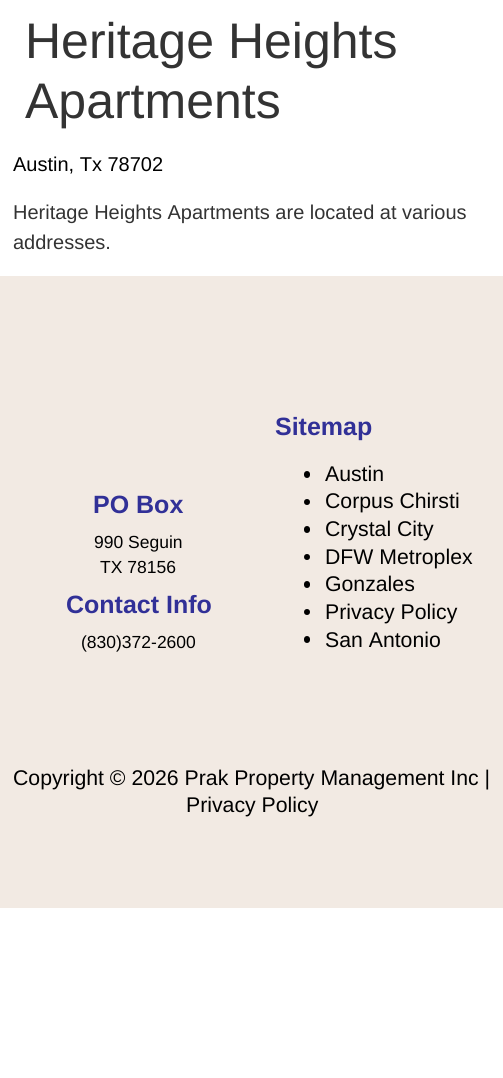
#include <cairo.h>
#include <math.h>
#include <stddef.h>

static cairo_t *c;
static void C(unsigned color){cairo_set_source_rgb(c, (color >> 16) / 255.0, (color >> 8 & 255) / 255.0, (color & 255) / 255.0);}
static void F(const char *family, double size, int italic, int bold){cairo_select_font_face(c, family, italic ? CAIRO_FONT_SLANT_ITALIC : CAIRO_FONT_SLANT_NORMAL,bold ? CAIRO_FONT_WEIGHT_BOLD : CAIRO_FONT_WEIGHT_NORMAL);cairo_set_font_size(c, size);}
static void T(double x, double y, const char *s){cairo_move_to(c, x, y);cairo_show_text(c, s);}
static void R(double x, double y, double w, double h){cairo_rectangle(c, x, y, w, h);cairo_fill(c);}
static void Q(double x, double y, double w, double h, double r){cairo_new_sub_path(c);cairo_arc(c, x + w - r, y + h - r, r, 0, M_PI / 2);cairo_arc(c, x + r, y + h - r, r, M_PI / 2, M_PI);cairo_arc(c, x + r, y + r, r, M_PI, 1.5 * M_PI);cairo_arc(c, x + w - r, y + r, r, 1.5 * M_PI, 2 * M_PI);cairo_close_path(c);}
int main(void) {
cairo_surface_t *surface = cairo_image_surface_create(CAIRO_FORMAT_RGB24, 503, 1078);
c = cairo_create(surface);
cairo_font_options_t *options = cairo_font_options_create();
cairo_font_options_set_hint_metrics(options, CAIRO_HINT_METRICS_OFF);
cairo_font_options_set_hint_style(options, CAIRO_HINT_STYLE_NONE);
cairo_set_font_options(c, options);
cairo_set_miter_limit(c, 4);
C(0xffffff);
cairo_paint(c);
F("Liberation Sans",50,0,0);
C(0x333333);
T(25,58,"Heritage Heights");
T(25,118,"Apartments");
F("Liberation Sans",20,0,0);
C(0x000000);
T(13,171,"Austin, Tx 78702");
C(0x333333);
T(13,219,"Heritage Heights Apartments are located at various");
T(13,249,"addresses.");
C(0xf2eae3);
R(0,276,503,632);
F("Liberation Sans",25,0,1);
C(0x313097);
T(93,513,"PO Box");
F("Liberation Sans",17.5,0,0);
C(0x000000);
T(94,548,"990 Seguin");
T(100,573,"TX 78156");
F("Liberation Sans",25,0,1);
C(0x313097);
T(66,613,"Contact Info");
F("Liberation Sans",17.5,0,0);
C(0x000000);
T(81,648,"(830)372-2600");
F("Liberation Sans",25,0,1);
C(0x313097);
T(275,435,"Sitemap");
C(0x000000);
Q(304,471,6,7,3);
cairo_fill(c);
F("Liberation Sans",21.25,0,0);
T(325,481,"Austin");
cairo_new_path(c);
cairo_arc(c,307,502,3,0,2 * M_PI);
cairo_fill(c);
T(325,508,"Corpus Chirsti");
Q(304,526,6,7,3);
cairo_fill(c);
T(325,536,"Crystal City");
cairo_new_path(c);
cairo_arc(c,307,557,3,0,2 * M_PI);
cairo_fill(c);
T(325,564,"DFW Metroplex");
Q(304,581,6,7,3);
cairo_fill(c);
T(325,591,"Gonzales");
cairo_new_path(c);
cairo_arc(c,307,612,3,0,2 * M_PI);
cairo_fill(c);
T(325,619,"Privacy Policy");
Q(304,636,6,7,3);
cairo_fill(c);
T(325,647,"San Antonio");
T(13,785,"Copyright © 2026 Prak Property Management Inc |");
T(186,812,"Privacy Policy");
cairo_surface_write_to_png(surface, "o.png");
cairo_font_options_destroy(options);
cairo_destroy(c);
cairo_surface_destroy(surface);
return 0;
}
